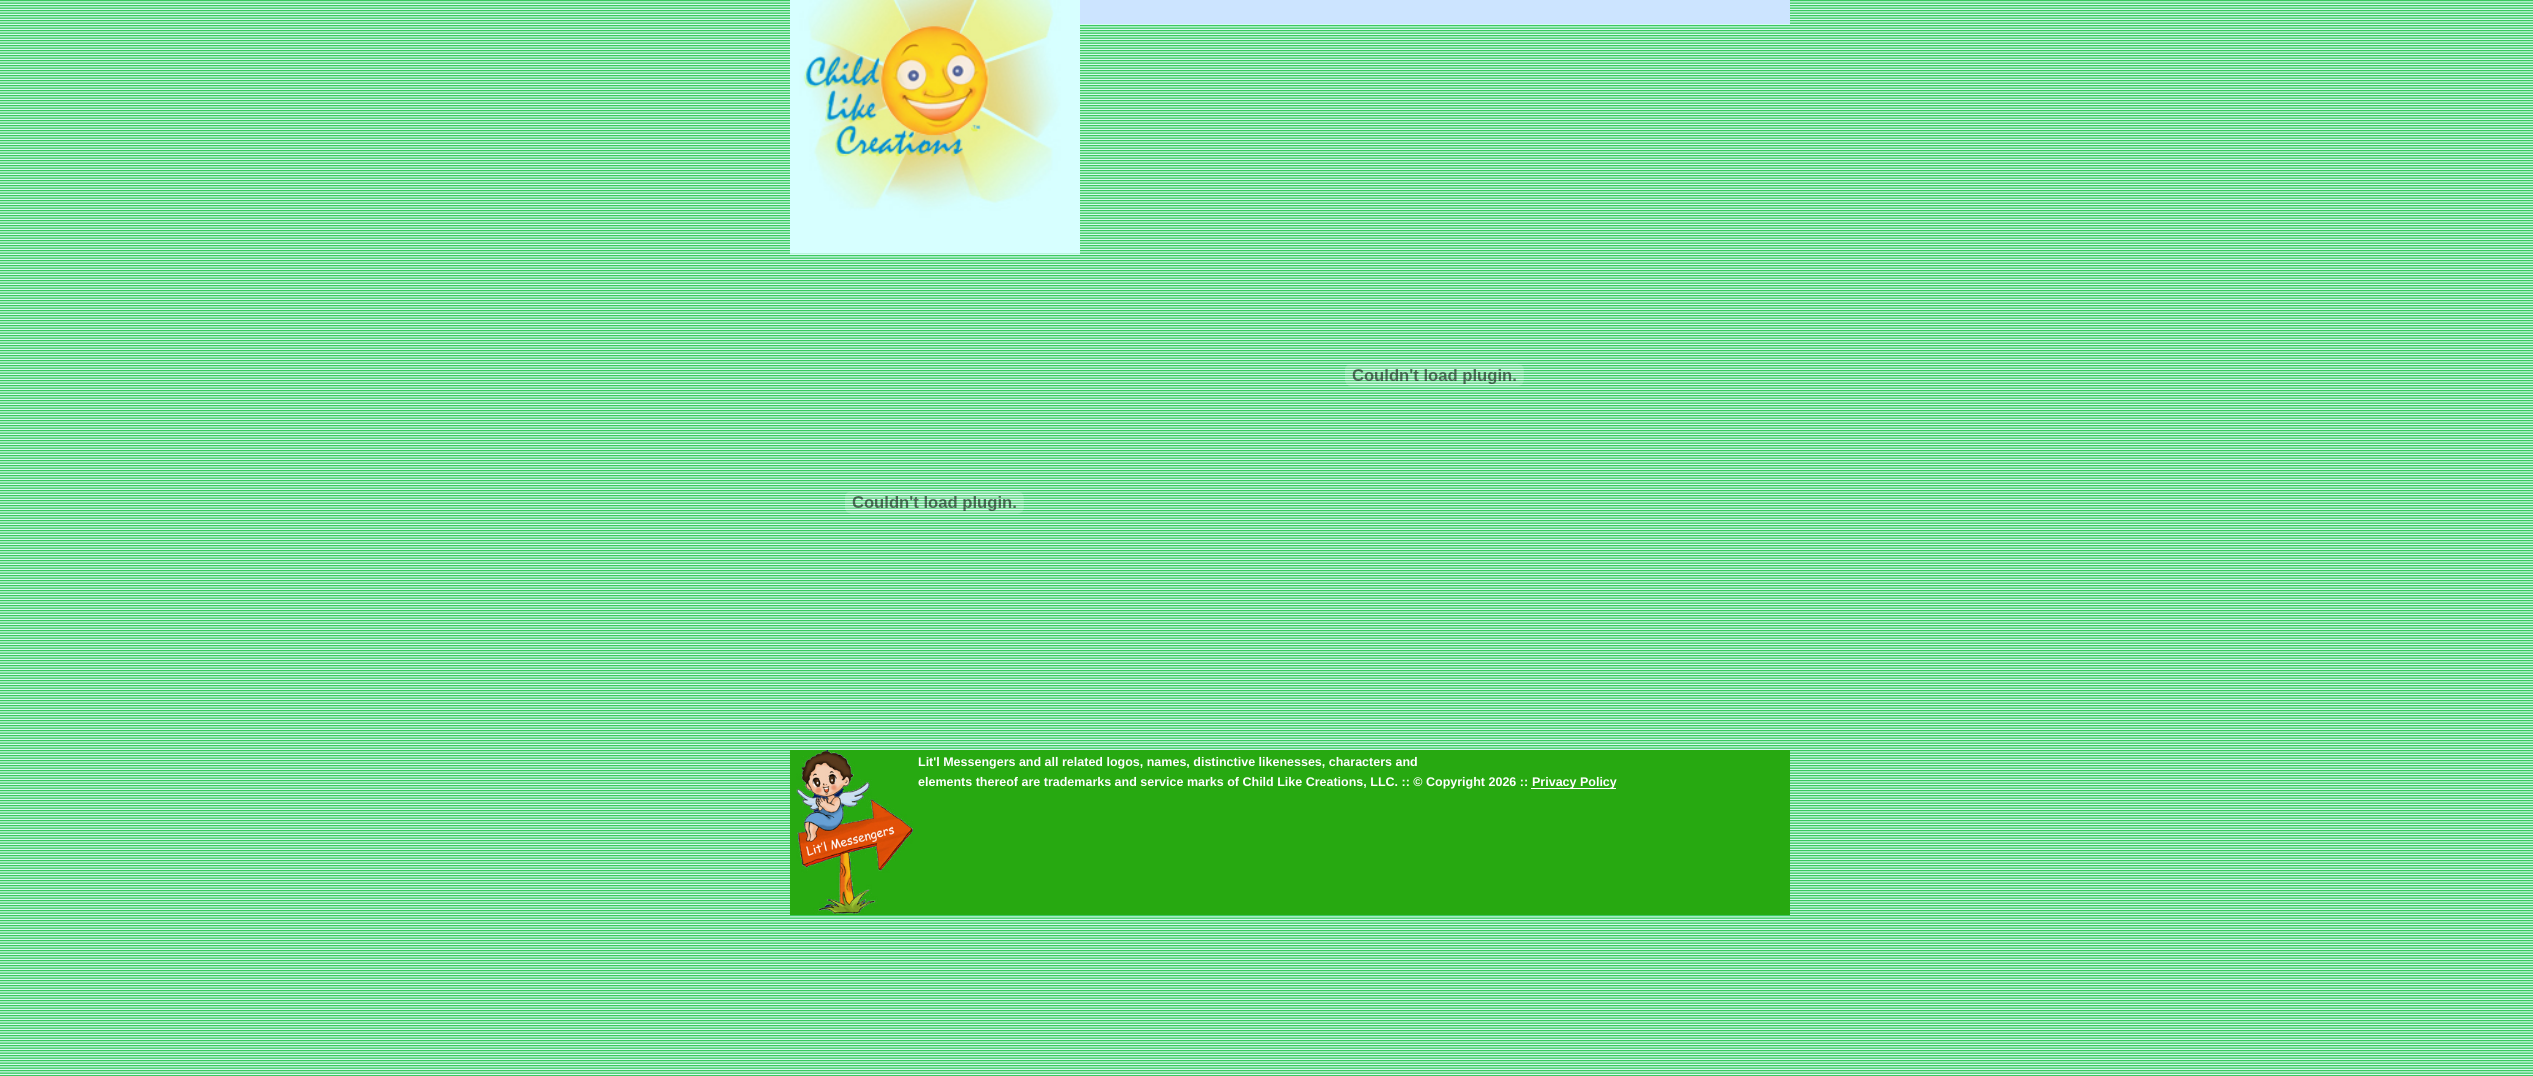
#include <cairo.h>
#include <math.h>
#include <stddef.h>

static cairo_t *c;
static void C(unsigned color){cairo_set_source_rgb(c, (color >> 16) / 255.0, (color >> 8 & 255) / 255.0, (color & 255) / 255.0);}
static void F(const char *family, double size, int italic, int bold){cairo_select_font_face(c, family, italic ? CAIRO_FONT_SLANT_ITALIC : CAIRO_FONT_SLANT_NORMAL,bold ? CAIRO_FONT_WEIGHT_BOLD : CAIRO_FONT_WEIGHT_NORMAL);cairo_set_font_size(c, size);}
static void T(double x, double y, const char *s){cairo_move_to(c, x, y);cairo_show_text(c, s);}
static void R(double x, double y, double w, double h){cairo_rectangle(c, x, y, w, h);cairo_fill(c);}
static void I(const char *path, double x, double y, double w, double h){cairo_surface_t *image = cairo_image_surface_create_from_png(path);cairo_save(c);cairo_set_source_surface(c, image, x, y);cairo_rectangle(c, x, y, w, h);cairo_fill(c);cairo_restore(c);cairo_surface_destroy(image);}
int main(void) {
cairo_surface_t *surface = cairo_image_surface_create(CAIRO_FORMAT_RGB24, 2533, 1076);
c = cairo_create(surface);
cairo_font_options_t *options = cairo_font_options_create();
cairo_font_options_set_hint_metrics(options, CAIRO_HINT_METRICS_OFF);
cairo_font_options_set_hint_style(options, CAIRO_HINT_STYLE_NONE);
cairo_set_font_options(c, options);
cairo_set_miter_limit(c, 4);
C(0xffffff);
cairo_paint(c);
I("1.png",0,0,2533,1076);
C(0xcce4ff);
R(1080,0,710,24);
I("2.png",790,0,290,254);
I("3.png",1345,363,179,24);
I("4.png",845,491,179,23);
C(0x27a911);
R(790,750,1000,165);
I("5.png",796,750,117,164);
F("Liberation Sans",12.5,0,1);
C(0xffffff);
T(918,766,"Lit'l Messengers and all related logos, names, distinctive likenesses, characters and");
T(918,786,"elements thereof are trademarks and service marks of Child Like Creations, LLC. :: © Copyright 2026 ::");
R(1531,788,85,1);
T(1532,786,"Privacy Policy");
cairo_surface_write_to_png(surface, "o.png");
cairo_font_options_destroy(options);
cairo_destroy(c);
cairo_surface_destroy(surface);
return 0;
}
